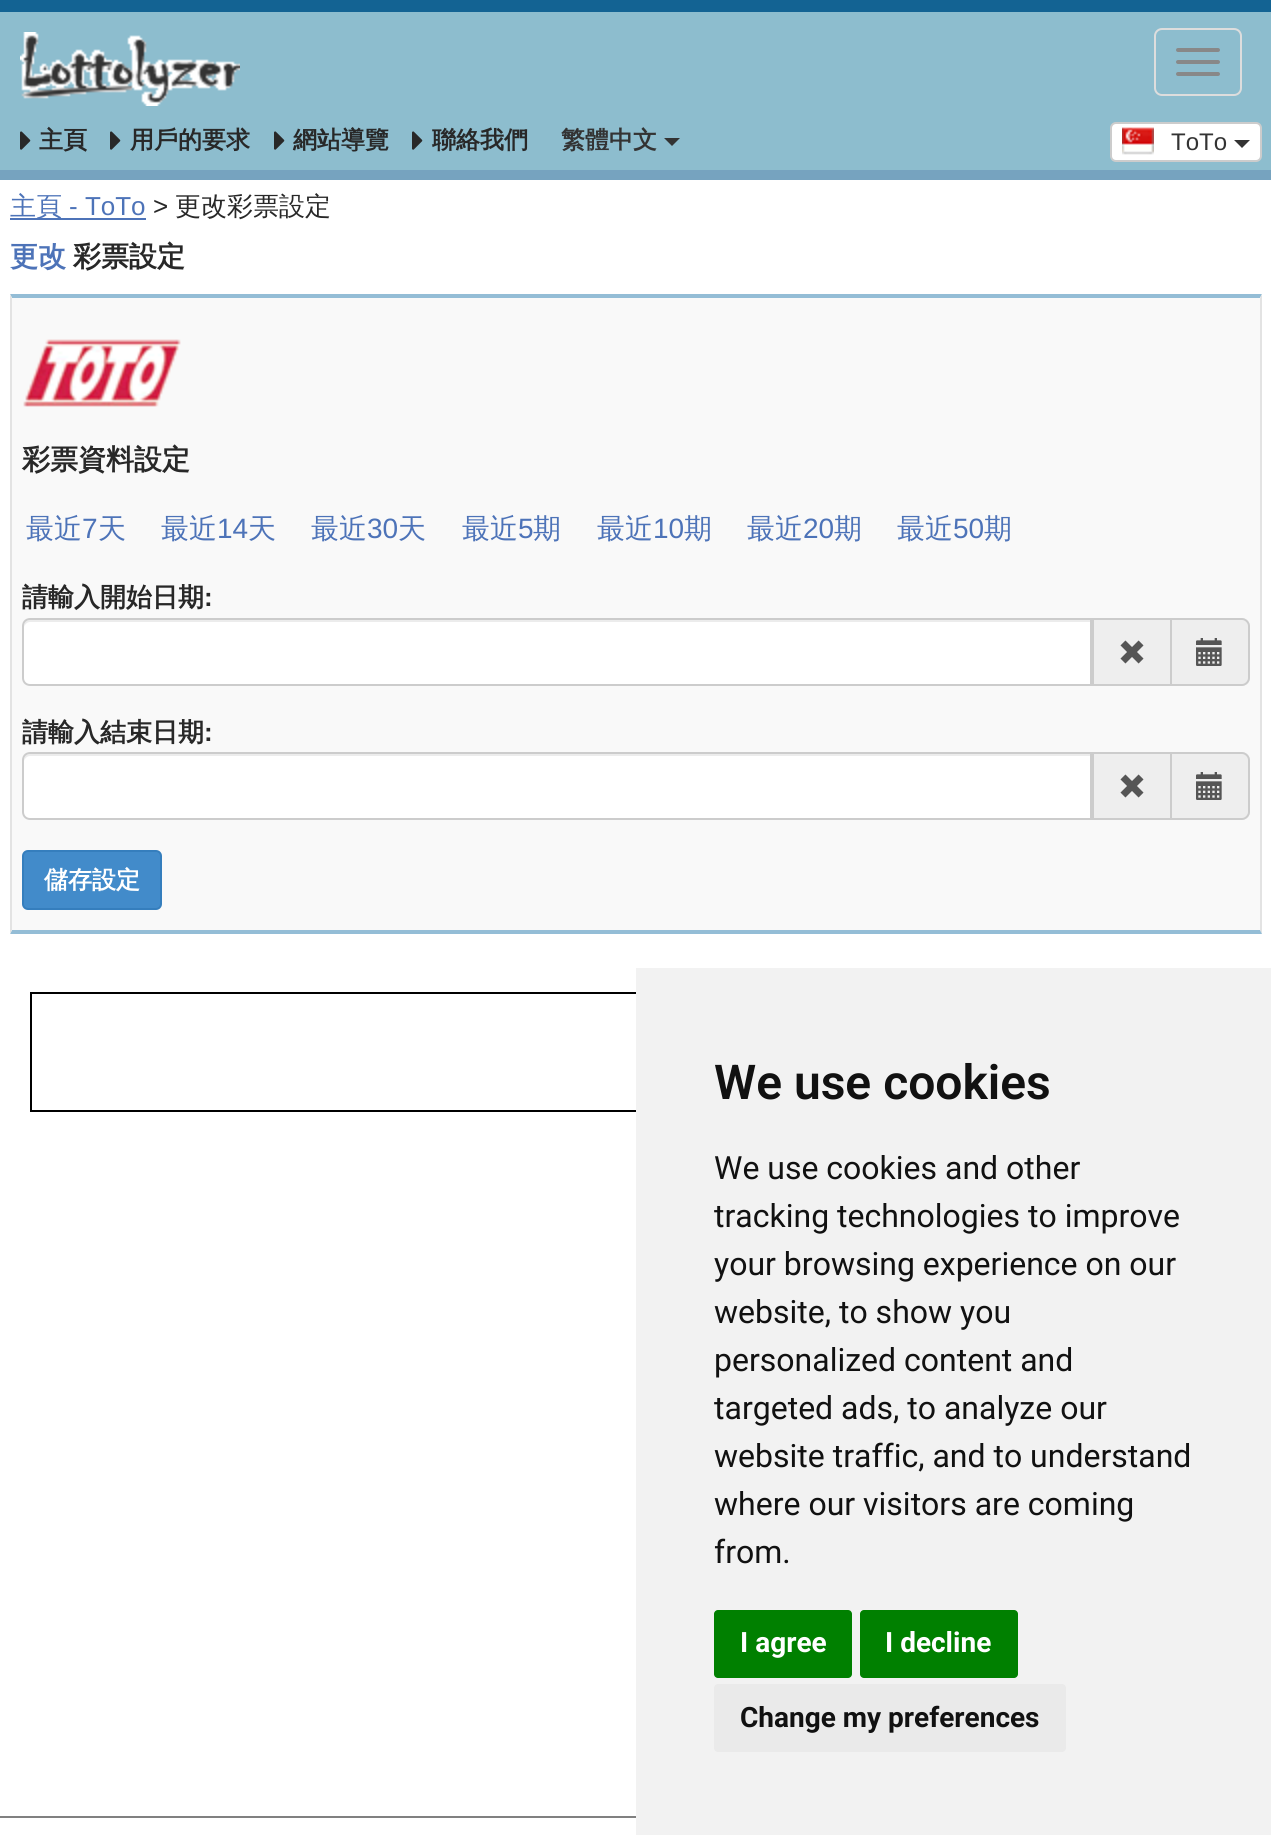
#include <cairo.h>
#include <math.h>
#include <stddef.h>

static cairo_t *c;
static void C(unsigned color){cairo_set_source_rgb(c, (color >> 16) / 255.0, (color >> 8 & 255) / 255.0, (color & 255) / 255.0);}
static void F(const char *family, double size, int italic, int bold){cairo_select_font_face(c, family, italic ? CAIRO_FONT_SLANT_ITALIC : CAIRO_FONT_SLANT_NORMAL,bold ? CAIRO_FONT_WEIGHT_BOLD : CAIRO_FONT_WEIGHT_NORMAL);cairo_set_font_size(c, size);}
static void T(double x, double y, const char *s){cairo_move_to(c, x, y);cairo_show_text(c, s);}
static void R(double x, double y, double w, double h){cairo_rectangle(c, x, y, w, h);cairo_fill(c);}
static void Q(double x, double y, double w, double h, double r){cairo_new_sub_path(c);cairo_arc(c, x + w - r, y + h - r, r, 0, M_PI / 2);cairo_arc(c, x + r, y + h - r, r, M_PI / 2, M_PI);cairo_arc(c, x + r, y + r, r, M_PI, 1.5 * M_PI);cairo_arc(c, x + w - r, y + r, r, 1.5 * M_PI, 2 * M_PI);cairo_close_path(c);}
static void I(const char *path, double x, double y, double w, double h){cairo_surface_t *image = cairo_image_surface_create_from_png(path);cairo_save(c);cairo_set_source_surface(c, image, x, y);cairo_rectangle(c, x, y, w, h);cairo_fill(c);cairo_restore(c);cairo_surface_destroy(image);}
int main(void) {
cairo_surface_t *surface = cairo_image_surface_create(CAIRO_FORMAT_RGB24, 1271, 1835);
c = cairo_create(surface);
cairo_font_options_t *options = cairo_font_options_create();
cairo_font_options_set_hint_metrics(options, CAIRO_HINT_METRICS_OFF);
cairo_font_options_set_hint_style(options, CAIRO_HINT_STYLE_NONE);
cairo_set_font_options(c, options);
cairo_set_miter_limit(c, 4);
C(0xffffff);
cairo_paint(c);
C(0x8dbdce);
R(0,12,1271,158);
C(0x136393);
R(0,0,1271,12);
C(0x76a3bf);
R(0,170,1271,10);
I("1.png",20,32,220,74);
Q(1155,29,86,66,7);
C(0xdddddd);
cairo_stroke(c);
C(0x888888);
Q(1176,48,44,4,2);
cairo_fill(c);
Q(1176,60,44,4,2);
cairo_fill(c);
Q(1176,72,44,4,2);
cairo_fill(c);
I("2.png",20,131,11,19);
F("WenQuanYi Zen Hei",24,0,1);
C(0x282828);
T(39,148,"主頁");
I("2.png",110,131,11,19);
T(130,148,"用戶的要求");
I("2.png",274,131,11,19);
T(293,148,"網站導覽");
I("2.png",412,131,11,19);
T(432,148,"聯絡我們");
C(0x333333);
T(561,148,"繁體中文");
cairo_new_path(c);
cairo_move_to(c,664,138);
cairo_line_to(c,680,138);
cairo_line_to(c,672,146);
cairo_close_path(c);
cairo_fill(c);
C(0xffffff);
Q(1111,123,150,38,5);
cairo_fill_preserve(c);
C(0xcccccc);
cairo_stroke(c);
I("3.png",1122,127,32,28);
F("Liberation Sans",24,0,0);
C(0x333333);
T(1171,150,"ToTo");
cairo_new_path(c);
cairo_move_to(c,1234,140);
cairo_line_to(c,1250,140);
cairo_line_to(c,1242,148);
cairo_close_path(c);
cairo_fill(c);
C(0x4d73b8);
R(10,218,136,2);
F("WenQuanYi Zen Hei Medium",26,0,0);
T(10,215,"主頁");
F("Liberation Sans",26,0,0);
T(69,215,"- ToTo");
C(0x282828);
T(153,215,">");
F("WenQuanYi Zen Hei Medium",26,0,0);
T(175,215,"更改彩票設定");
F("WenQuanYi Zen Hei",28,0,1);
C(0x4d73b8);
T(10,266,"更改");
C(0x282828);
T(73,266,"彩票設定");
C(0xf9f9f9);
R(12,298,1248,632);
C(0x94bdd6);
cairo_new_path(c);
cairo_move_to(c,10,294);
cairo_line_to(c,1262,294);
cairo_line_to(c,1260,298);
cairo_line_to(c,12,298);
cairo_close_path(c);
cairo_fill(c);
C(0xe3e3e3);
cairo_new_path(c);
cairo_move_to(c,1262,294);
cairo_line_to(c,1262,934);
cairo_line_to(c,1260,930);
cairo_line_to(c,1260,298);
cairo_close_path(c);
cairo_fill(c);
C(0x94bdd6);
cairo_new_path(c);
cairo_move_to(c,1262,934);
cairo_line_to(c,10,934);
cairo_line_to(c,12,930);
cairo_line_to(c,1260,930);
cairo_close_path(c);
cairo_fill(c);
C(0xe3e3e3);
cairo_new_path(c);
cairo_move_to(c,10,934);
cairo_line_to(c,10,294);
cairo_line_to(c,12,298);
cairo_line_to(c,12,930);
cairo_close_path(c);
cairo_fill(c);
I("4.png",23,339,158,68);
C(0x282828);
T(22,469,"彩票資料設定");
F("WenQuanYi Zen Hei Medium",28,0,0);
C(0x4d73b8);
T(26,538,"最近");
F("Liberation Sans",28,0,0);
T(82,538,"7");
F("WenQuanYi Zen Hei Medium",28,0,0);
T(98,538,"天");
T(161,538,"最近");
F("Liberation Sans",28,0,0);
T(217,538,"14");
F("WenQuanYi Zen Hei Medium",28,0,0);
T(248,538,"天");
T(311,538,"最近");
F("Liberation Sans",28,0,0);
T(367,538,"30");
F("WenQuanYi Zen Hei Medium",28,0,0);
T(398,538,"天");
T(462,538,"最近");
F("Liberation Sans",28,0,0);
T(518,538,"5");
F("WenQuanYi Zen Hei Medium",28,0,0);
T(533,538,"期");
T(597,538,"最近");
F("Liberation Sans",28,0,0);
T(653,538,"10");
F("WenQuanYi Zen Hei Medium",28,0,0);
T(684,538,"期");
T(747,538,"最近");
F("Liberation Sans",28,0,0);
T(803,538,"20");
F("WenQuanYi Zen Hei Medium",28,0,0);
T(834,538,"期");
T(897,538,"最近");
F("Liberation Sans",28,0,0);
T(953,538,"50");
F("WenQuanYi Zen Hei Medium",28,0,0);
T(984,538,"期");
F("WenQuanYi Zen Hei",26,0,1);
C(0x282828);
T(22,606,"請輸入開始日期");
F("Liberation Sans",26,0,1);
T(204,606,":");
C(0xffffff);
cairo_new_path(c);
cairo_move_to(c,30,618);
cairo_line_to(c,1092,618);
cairo_line_to(c,1092,686);
cairo_line_to(c,30,686);
cairo_curve_to(c,25.5,686,22,682.5,22,678);
cairo_line_to(c,22,626);
cairo_curve_to(c,22,621.5,25.5,618,30,618);
cairo_close_path(c);
cairo_fill(c);
C(0xececec);
cairo_new_path(c);
cairo_move_to(c,30,622);
cairo_line_to(c,1090,622);
cairo_line_to(c,1090,620);
cairo_line_to(c,30,620);
cairo_curve_to(c,25,620,24,624,24,628);
cairo_curve_to(c,24,625,27,622,30,622);
cairo_close_path(c);
cairo_fill(c);
cairo_new_path(c);
cairo_move_to(c,30,619);
cairo_line_to(c,1091,619);
cairo_line_to(c,1091,685);
cairo_line_to(c,30,685);
cairo_curve_to(c,26,685,23,682,23,678);
cairo_line_to(c,23,626);
cairo_curve_to(c,23,622,26,619,30,619);
cairo_close_path(c);
C(0xcccccc);
cairo_stroke(c);
C(0xeeeeee);
cairo_rectangle(c,1093,619,78,66);
cairo_fill_preserve(c);
C(0xcccccc);
cairo_stroke(c);
I("5.png",1120,640,24,24);
C(0xeeeeee);
cairo_new_path(c);
cairo_move_to(c,1172,618);
cairo_line_to(c,1242,618);
cairo_curve_to(c,1246.5,618,1250,621.5,1250,626);
cairo_line_to(c,1250,678);
cairo_curve_to(c,1250,682.5,1246.5,686,1242,686);
cairo_line_to(c,1172,686);
cairo_close_path(c);
cairo_fill(c);
C(0xcccccc);
cairo_set_fill_rule(c,CAIRO_FILL_RULE_EVEN_ODD);
cairo_new_path(c);
cairo_move_to(c,1172,618);
cairo_line_to(c,1242,618);
cairo_curve_to(c,1246,618,1250,622,1250,626);
cairo_line_to(c,1250,678);
cairo_curve_to(c,1250,682,1246,686,1242,686);
cairo_line_to(c,1172,686);
cairo_close_path(c);
cairo_move_to(c,1172,620);
cairo_line_to(c,1242,620);
cairo_curve_to(c,1245,620,1248,623,1248,626);
cairo_line_to(c,1248,678);
cairo_curve_to(c,1248,681,1245,684,1242,684);
cairo_line_to(c,1172,684);
cairo_close_path(c);
cairo_fill(c);
I("6.png",1196,638,26,28);
F("WenQuanYi Zen Hei",26,0,1);
C(0x282828);
T(22,741,"請輸入結束日期");
F("Liberation Sans",26,0,1);
T(204,741,":");
C(0xffffff);
cairo_new_path(c);
cairo_move_to(c,30,752);
cairo_line_to(c,1092,752);
cairo_line_to(c,1092,820);
cairo_line_to(c,30,820);
cairo_curve_to(c,25.5,820,22,816.5,22,812);
cairo_line_to(c,22,760);
cairo_curve_to(c,22,755.5,25.5,752,30,752);
cairo_close_path(c);
cairo_fill(c);
C(0xececec);
cairo_set_fill_rule(c,CAIRO_FILL_RULE_WINDING);
cairo_new_path(c);
cairo_move_to(c,30,756);
cairo_line_to(c,1090,756);
cairo_line_to(c,1090,754);
cairo_line_to(c,30,754);
cairo_curve_to(c,25,754,24,758,24,762);
cairo_curve_to(c,24,759,27,756,30,756);
cairo_close_path(c);
cairo_fill(c);
cairo_new_path(c);
cairo_move_to(c,30,753);
cairo_line_to(c,1091,753);
cairo_line_to(c,1091,819);
cairo_line_to(c,30,819);
cairo_curve_to(c,26,819,23,816,23,812);
cairo_line_to(c,23,760);
cairo_curve_to(c,23,756,26,753,30,753);
cairo_close_path(c);
C(0xcccccc);
cairo_stroke(c);
C(0xeeeeee);
cairo_rectangle(c,1093,753,78,66);
cairo_fill_preserve(c);
C(0xcccccc);
cairo_stroke(c);
I("5.png",1120,774,24,24);
C(0xeeeeee);
cairo_new_path(c);
cairo_move_to(c,1172,752);
cairo_line_to(c,1242,752);
cairo_curve_to(c,1246.5,752,1250,755.5,1250,760);
cairo_line_to(c,1250,812);
cairo_curve_to(c,1250,816.5,1246.5,820,1242,820);
cairo_line_to(c,1172,820);
cairo_close_path(c);
cairo_fill(c);
C(0xcccccc);
cairo_set_fill_rule(c,CAIRO_FILL_RULE_EVEN_ODD);
cairo_new_path(c);
cairo_move_to(c,1172,752);
cairo_line_to(c,1242,752);
cairo_curve_to(c,1246,752,1250,756,1250,760);
cairo_line_to(c,1250,812);
cairo_curve_to(c,1250,816,1246,820,1242,820);
cairo_line_to(c,1172,820);
cairo_close_path(c);
cairo_move_to(c,1172,754);
cairo_line_to(c,1242,754);
cairo_curve_to(c,1245,754,1248,757,1248,760);
cairo_line_to(c,1248,812);
cairo_curve_to(c,1248,815,1245,818,1242,818);
cairo_line_to(c,1172,818);
cairo_close_path(c);
cairo_fill(c);
I("6.png",1196,772,26,28);
C(0x428bca);
Q(23,851,138,58,5);
cairo_fill_preserve(c);
C(0x357ebd);
cairo_stroke(c);
F("WenQuanYi Zen Hei",24,0,1);
C(0xffffff);
T(44,888,"儲存設定");
cairo_rectangle(c,31,993,934,118);
C(0x000000);
cairo_stroke(c);
C(0xf2f2f2);
R(636,968,635,867);
F("Roboto SemiBold",48,0,0);
C(0x111111);
T(714,1099,"We use cookies");
F("Roboto",32,0,0);
T(714,1179,"We use cookies and other");
T(714,1227,"tracking technologies to improve");
T(714,1275,"your browsing experience on our");
T(714,1323,"website, to show you");
T(714,1371,"personalized content and");
T(714,1419,"targeted ads, to analyze our");
T(714,1467,"website traffic, and to understand");
T(714,1515,"where our visitors are coming");
T(714,1563,"from.");
C(0x008000);
Q(714,1610,138,68,4);
cairo_fill(c);
F("Roboto",28,0,1);
C(0xffffff);
T(740,1652,"I agree");
C(0x008000);
Q(860,1610,158,68,4);
cairo_fill(c);
C(0xffffff);
T(885,1652,"I decline");
C(0xeaeaea);
Q(714,1684,352,68,4);
cairo_fill(c);
C(0x111111);
T(740,1727,"Change my preferences");
C(0x808080);
R(0,1816,636,2);
cairo_surface_write_to_png(surface, "o.png");
cairo_font_options_destroy(options);
cairo_destroy(c);
cairo_surface_destroy(surface);
return 0;
}
